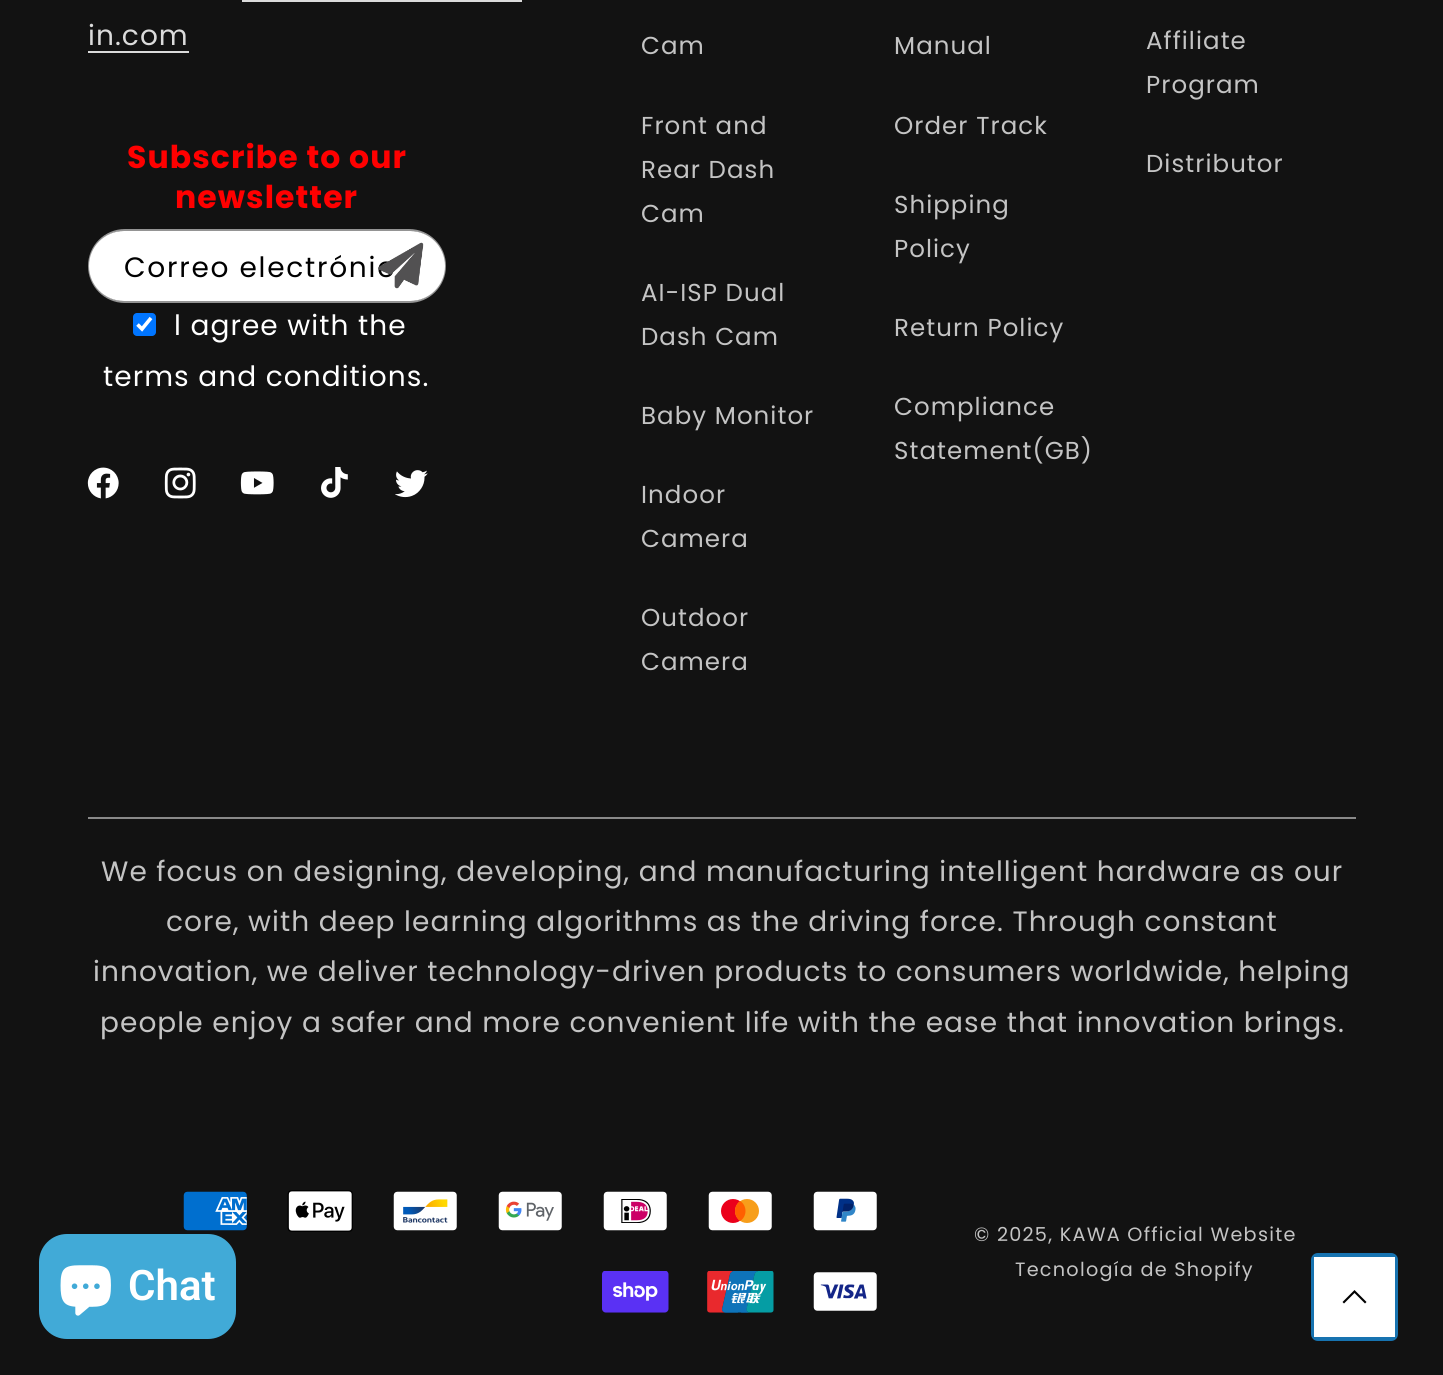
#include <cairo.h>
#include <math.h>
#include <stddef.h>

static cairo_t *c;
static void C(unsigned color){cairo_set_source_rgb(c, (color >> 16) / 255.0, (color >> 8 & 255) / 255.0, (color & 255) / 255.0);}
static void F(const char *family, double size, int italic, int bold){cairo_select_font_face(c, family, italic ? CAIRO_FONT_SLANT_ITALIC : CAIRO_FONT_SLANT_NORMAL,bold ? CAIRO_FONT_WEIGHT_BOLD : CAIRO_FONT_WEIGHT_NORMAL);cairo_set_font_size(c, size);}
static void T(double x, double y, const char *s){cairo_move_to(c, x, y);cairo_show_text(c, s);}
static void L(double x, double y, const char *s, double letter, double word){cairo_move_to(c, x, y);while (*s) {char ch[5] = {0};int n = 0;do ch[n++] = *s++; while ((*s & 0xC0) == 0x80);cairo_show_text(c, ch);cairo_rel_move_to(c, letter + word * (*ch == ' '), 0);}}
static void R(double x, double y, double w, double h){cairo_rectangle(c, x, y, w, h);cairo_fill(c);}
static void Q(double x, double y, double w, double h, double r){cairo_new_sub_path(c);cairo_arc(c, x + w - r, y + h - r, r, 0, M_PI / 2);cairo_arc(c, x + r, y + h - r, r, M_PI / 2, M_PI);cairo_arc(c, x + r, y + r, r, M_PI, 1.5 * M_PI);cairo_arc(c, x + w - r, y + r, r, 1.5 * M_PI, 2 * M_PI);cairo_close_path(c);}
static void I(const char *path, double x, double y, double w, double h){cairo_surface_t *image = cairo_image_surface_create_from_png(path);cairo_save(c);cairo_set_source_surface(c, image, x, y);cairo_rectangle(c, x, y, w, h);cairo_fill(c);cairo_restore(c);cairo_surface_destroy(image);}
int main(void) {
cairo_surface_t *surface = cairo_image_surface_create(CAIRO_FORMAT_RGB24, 1443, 1375);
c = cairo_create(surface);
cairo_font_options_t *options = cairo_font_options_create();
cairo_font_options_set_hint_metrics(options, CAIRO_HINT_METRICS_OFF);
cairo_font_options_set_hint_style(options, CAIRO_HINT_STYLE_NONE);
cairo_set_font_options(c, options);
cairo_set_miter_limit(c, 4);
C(0x121212);
cairo_paint(c);
F("Poppins",28,0,0);
C(0xdbdbdb);
L(88,45,"in.com",1.05,0);
R(242,0,280,2);
R(88,51,101,2);
F("Poppins",31.5,0,1);
C(0xff0000);
L(127,168,"Subscribe to our",1.05,0);
L(175,208,"newsletter",1.05,0);
C(0xffffff);
Q(89,231,356,70,35);
cairo_fill(c);
Q(89,230,356,72,36);
cairo_set_source_rgba(c,1,1,1,0.55);
cairo_stroke(c);
F("Poppins",28,0,0);
C(0x000000);
L(124,277,"Correo electrónic",1.75,0);
I("1.png",378,242,46,47);
C(0x0075ff);
Q(133,313,23,23,4);
cairo_fill(c);
cairo_new_path(c);
cairo_move_to(c,137.5,324.5);
cairo_line_to(c,142,329);
cairo_line_to(c,151,318);
C(0xffffff);
cairo_set_line_width(c,3.6);
cairo_stroke(c);
L(174,335,"l agree with the",1.05,0);
L(103,386,"terms and conditions.",1.05,0);
I("2.png",87,467,32,32);
I("3.png",164,467,32,32);
I("4.png",240,471,34,24);
I("5.png",321,467,27,31);
I("6.png",395,470,33,28);
F("Poppins",24.5,0,0);
C(0xc4c4c4);
L(641,54,"Cam",1.05,0);
L(641,134,"Front and",1.05,0);
L(641,178,"Rear Dash",1.05,0);
L(641,222,"Cam",1.05,0);
L(641,301,"AI-ISP Dual",1.05,0);
L(641,345,"Dash Cam",1.05,0);
L(641,424,"Baby Monitor",1.05,0);
L(641,503,"Indoor",1.05,0);
L(641,547,"Camera",1.05,0);
L(641,626,"Outdoor",1.05,0);
L(641,670,"Camera",1.05,0);
L(894,54,"Manual",1.05,0);
L(894,134,"Order Track",1.05,0);
L(894,213,"Shipping",1.05,0);
L(894,257,"Policy",1.05,0);
L(894,336,"Return Policy",1.05,0);
L(894,415,"Compliance",1.05,0);
L(894,459,"Statement(GB)",1.05,0);
L(1146,49,"Affiliate",1.05,0);
L(1146,93,"Program",1.05,0);
L(1146,172,"Distributor",1.05,0);
C(0x898989);
R(88,817,1268,2);
F("Poppins",28,0,0);
C(0xc4c4c4);
L(101,881,"We focus on designing, developing, and manufacturing intelligent hardware as our",1.05,0);
L(166,931,"core, with deep learning algorithms as the driving force. Through constant",1.05,0);
L(93,981,"innovation, we deliver technology-driven products to consumers worldwide, helping",1.05,0);
L(100,1032,"people enjoy a safer and more convenient life with the ease that innovation brings.",1.05,0);
I("7.png",183,1191,64,40);
I("8.png",287,1190,66,42);
I("9.png",393,1191,64,40);
I("10.png",498,1191,64,40);
I("11.png",603,1191,64,40);
I("12.png",708,1191,64,40);
I("13.png",813,1191,64,40);
I("14.png",602,1271,67,42);
I("15.png",707,1271,67,42);
I("16.png",813,1272,64,39);
F("Poppins",19.25,0,0);
L(974,1241,"© 2025, KAWA Official Website",1.25,0);
L(1015,1276,"Tecnología de Shopify",1.25,0);
C(0x41aad7);
Q(39,1234,197,105,28);
cairo_fill(c);
I("17.png",60,1265,51,51);
F("Roboto SemiBold",42,0,0);
C(0xffffff);
T(128,1300,"Chat");
C(0x1773b0);
cairo_new_path(c);
cairo_move_to(c,1318,1253);
cairo_curve_to(c,1314,1253,1311,1256,1311,1260);
cairo_line_to(c,1311,1334);
cairo_curve_to(c,1311,1338,1314,1341,1318,1341);
cairo_line_to(c,1391,1341);
cairo_curve_to(c,1395,1341,1398,1338,1398,1334);
cairo_line_to(c,1398,1260);
cairo_curve_to(c,1398,1256,1395,1253,1391,1253);
cairo_close_path(c);
cairo_fill(c);
C(0xffffff);
R(1314,1257,81,80);
C(0x000000);
cairo_new_path(c);
cairo_move_to(c,1356,1291.5);
cairo_line_to(c,1354.5,1290);
cairo_line_to(c,1342.5,1302);
cairo_line_to(c,1344,1303.5);
cairo_line_to(c,1354.5,1293);
cairo_line_to(c,1365,1303.5);
cairo_line_to(c,1366.5,1302);
cairo_line_to(c,1360.5,1296);
cairo_close_path(c);
cairo_fill(c);
cairo_surface_write_to_png(surface, "o.png");
cairo_font_options_destroy(options);
cairo_destroy(c);
cairo_surface_destroy(surface);
return 0;
}
